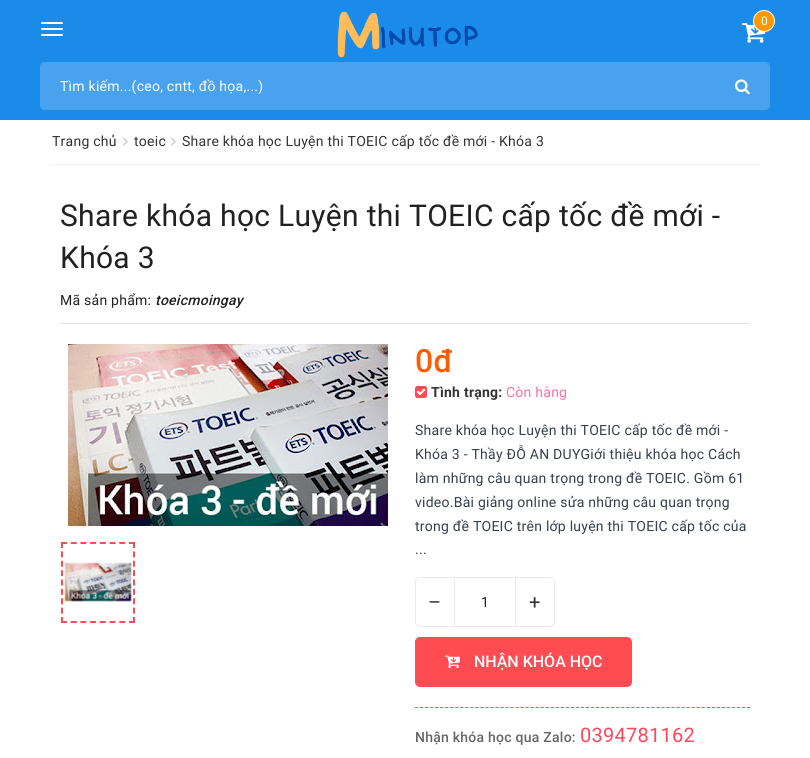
#include <cairo.h>
#include <math.h>
#include <stddef.h>

static cairo_t *c;
static void C(unsigned color){cairo_set_source_rgb(c, (color >> 16) / 255.0, (color >> 8 & 255) / 255.0, (color & 255) / 255.0);}
static void F(const char *family, double size, int italic, int bold){cairo_select_font_face(c, family, italic ? CAIRO_FONT_SLANT_ITALIC : CAIRO_FONT_SLANT_NORMAL,bold ? CAIRO_FONT_WEIGHT_BOLD : CAIRO_FONT_WEIGHT_NORMAL);cairo_set_font_size(c, size);}
static void T(double x, double y, const char *s){cairo_move_to(c, x, y);cairo_show_text(c, s);}
static void L(double x, double y, const char *s, double letter, double word){cairo_move_to(c, x, y);while (*s) {char ch[5] = {0};int n = 0;do ch[n++] = *s++; while ((*s & 0xC0) == 0x80);cairo_show_text(c, ch);cairo_rel_move_to(c, letter + word * (*ch == ' '), 0);}}
static void R(double x, double y, double w, double h){cairo_rectangle(c, x, y, w, h);cairo_fill(c);}
static void Q(double x, double y, double w, double h, double r){cairo_new_sub_path(c);cairo_arc(c, x + w - r, y + h - r, r, 0, M_PI / 2);cairo_arc(c, x + r, y + h - r, r, M_PI / 2, M_PI);cairo_arc(c, x + r, y + r, r, M_PI, 1.5 * M_PI);cairo_arc(c, x + w - r, y + r, r, 1.5 * M_PI, 2 * M_PI);cairo_close_path(c);}
static void I(const char *path, double x, double y, double w, double h){cairo_surface_t *image = cairo_image_surface_create_from_png(path);cairo_save(c);cairo_set_source_surface(c, image, x, y);cairo_rectangle(c, x, y, w, h);cairo_fill(c);cairo_restore(c);cairo_surface_destroy(image);}
int main(void) {
cairo_surface_t *surface = cairo_image_surface_create(CAIRO_FORMAT_RGB24, 810, 758);
c = cairo_create(surface);
cairo_font_options_t *options = cairo_font_options_create();
cairo_font_options_set_hint_metrics(options, CAIRO_HINT_METRICS_OFF);
cairo_font_options_set_hint_style(options, CAIRO_HINT_STYLE_NONE);
cairo_set_font_options(c, options);
cairo_set_miter_limit(c, 4);
C(0xffffff);
cairo_paint(c);
C(0x1b8bea);
R(0,0,810,120);
I("1.png",337,11,141,47);
I("2.png",742,23,24,20);
C(0xff9800);
cairo_arc(c,764,21,10.5,0,2 * M_PI);
cairo_fill_preserve(c);
C(0xffffff);
cairo_set_line_width(c,1);
cairo_stroke(c);
F("Roboto",12,0,0);
L(761,25,"0",.25,0);
Q(41,22,22,2,1);
cairo_fill(c);
Q(41,28,22,2,1);
cairo_fill(c);
Q(41,34,22,2,1);
cairo_fill(c);
C(0x49a2ee);
cairo_new_path(c);
cairo_move_to(c,45,62);
cairo_line_to(c,715,62);
cairo_line_to(c,715,110);
cairo_line_to(c,45,110);
cairo_curve_to(c,42,110,40,108,40,105);
cairo_line_to(c,40,67);
cairo_curve_to(c,40,64,42,62,45,62);
cairo_close_path(c);
cairo_fill(c);
F("Roboto",14,0,0);
C(0xffffff);
L(60,91,"Tìm kiếm...(ceo, cntt, đồ họa,...)",.25,0);
C(0x49a2ee);
cairo_new_path(c);
cairo_move_to(c,715,62);
cairo_line_to(c,765,62);
cairo_curve_to(c,768,62,770,64,770,67);
cairo_line_to(c,770,105);
cairo_curve_to(c,770,108,768,110,765,110);
cairo_line_to(c,715,110);
cairo_close_path(c);
cairo_fill(c);
I("3.png",735,79,15,16);
C(0xf0f0f0);
R(50,164,710,1);
C(0x333333);
L(52,146,"Trang chủ",.25,0);
I("4.png",123,137,5,9);
L(134,146,"toeic",.25,0);
I("4.png",171,137,5,9);
L(182,146,"Share khóa học Luyện thi TOEIC cấp tốc đề mới - Khóa 3",.25,0);
C(0xe5e5e5);
R(60,323,690,1);
F("Roboto",30,0,0);
C(0x212121);
L(60,226,"Share khóa học Luyện thi TOEIC cấp tốc đề mới -",.3,0);
L(60,268,"Khóa 3",.3,0);
F("Roboto",14,0,0);
L(60,305,"Mã sản phẩm:",.25,0);
F("Roboto Medium",14,1,0);
L(155,305,"toeicmoingay",.25,0);
I("5.png",68,344,320,182);
cairo_new_path(c);
cairo_move_to(c,61,543);
cairo_line_to(c,135,543);
C(0xff4b52);
cairo_set_line_width(c,2);
cairo_set_dash(c,(double[]){6,3.71},2,0);
cairo_stroke(c);
cairo_new_path(c);
cairo_move_to(c,134,542);
cairo_line_to(c,134,623);
cairo_set_dash(c,(double[]){6,3.38},2,0);
cairo_stroke(c);
cairo_new_path(c);
cairo_move_to(c,61,622);
cairo_line_to(c,135,622);
cairo_set_dash(c,(double[]){6,3.71},2,0);
cairo_stroke(c);
cairo_new_path(c);
cairo_move_to(c,62,542);
cairo_line_to(c,62,623);
cairo_set_dash(c,(double[]){6,3.38},2,0);
cairo_stroke(c);
I("6.png",64,562,68,40);
cairo_save(c);
cairo_rectangle(c,415,349,335,24);
cairo_clip(c);
F("Roboto Medium",32,0,0);
C(0xff5b02);
L(415,372,"0đ",.25,0);
cairo_restore(c);
I("7.png",415,386,12,12);
F("Roboto",14,0,1);
C(0x333333);
L(431,397,"Tình trạng:",.25,0);
F("Roboto",14,0,0);
C(0xff6ea4);
L(506,397,"Còn hàng",.25,0);
C(0x363f4d);
L(415,435,"Share khóa học Luyện thi TOEIC cấp tốc đề mới -",.25,0);
L(415,459,"Khóa 3 - Thầy ĐỖ AN DUYGiới thiệu khóa học Cách",.25,0);
L(415,483,"làm những câu quan trọng trong đề TOEIC. Gồm 61",.25,0);
L(415,507,"video.Bài giảng online sửa những câu quan trọng",.25,0);
L(415,531,"trong đề TOEIC trên lớp luyện thi TOEIC cấp tốc của",.25,0);
L(415,554,"...",.25,0);
cairo_new_path(c);
cairo_move_to(c,420,577.5);
cairo_line_to(c,454.5,577.5);
cairo_line_to(c,454.5,626.5);
cairo_line_to(c,420,626.5);
cairo_curve_to(c,417.5,626.5,415.5,624.5,415.5,622);
cairo_line_to(c,415.5,582);
cairo_curve_to(c,415.5,579.5,417.5,577.5,420,577.5);
cairo_close_path(c);
C(0xebebeb);
cairo_set_line_width(c,1);
cairo_set_dash(c,NULL,0,0);
cairo_stroke(c);
F("Roboto",20,0,0);
C(0x333333);
L(428,609,"–",.25,0);
C(0xebebeb);
R(455,577,60,1);
R(455,626,60,1);
F("Roboto",14,0,0);
C(0x212121);
L(481,607,"1",.25,0);
cairo_new_path(c);
cairo_move_to(c,515.5,577.5);
cairo_line_to(c,550,577.5);
cairo_curve_to(c,552.5,577.5,554.5,579.5,554.5,582);
cairo_line_to(c,554.5,622);
cairo_curve_to(c,554.5,624.5,552.5,626.5,550,626.5);
cairo_line_to(c,515.5,626.5);
cairo_close_path(c);
C(0xebebeb);
cairo_stroke(c);
F("Roboto",20,0,0);
C(0x333333);
L(529,609,"+",.25,0);
C(0xff4b52);
Q(415,637,217,50,5);
cairo_fill(c);
I("8.png",445,655,15,14);
F("Roboto Medium",16,0,0);
C(0xffffff);
T(474,667,"NHẬN KHÓA HỌC");
cairo_new_path(c);
cairo_move_to(c,415,707.5);
cairo_line_to(c,750,707.5);
C(0xfd475d);
cairo_set_dash(c,(double[]){3,2.03},2,0);
cairo_stroke(c);
F("Roboto Medium",14,0,0);
C(0x666666);
L(415,742,"Nhận khóa học qua Zalo:",.25,0);
F("Roboto",20,0,0);
C(0xfd475d);
L(580,742,"0394781162",.25,0);
cairo_surface_write_to_png(surface, "o.png");
cairo_font_options_destroy(options);
cairo_destroy(c);
cairo_surface_destroy(surface);
return 0;
}
